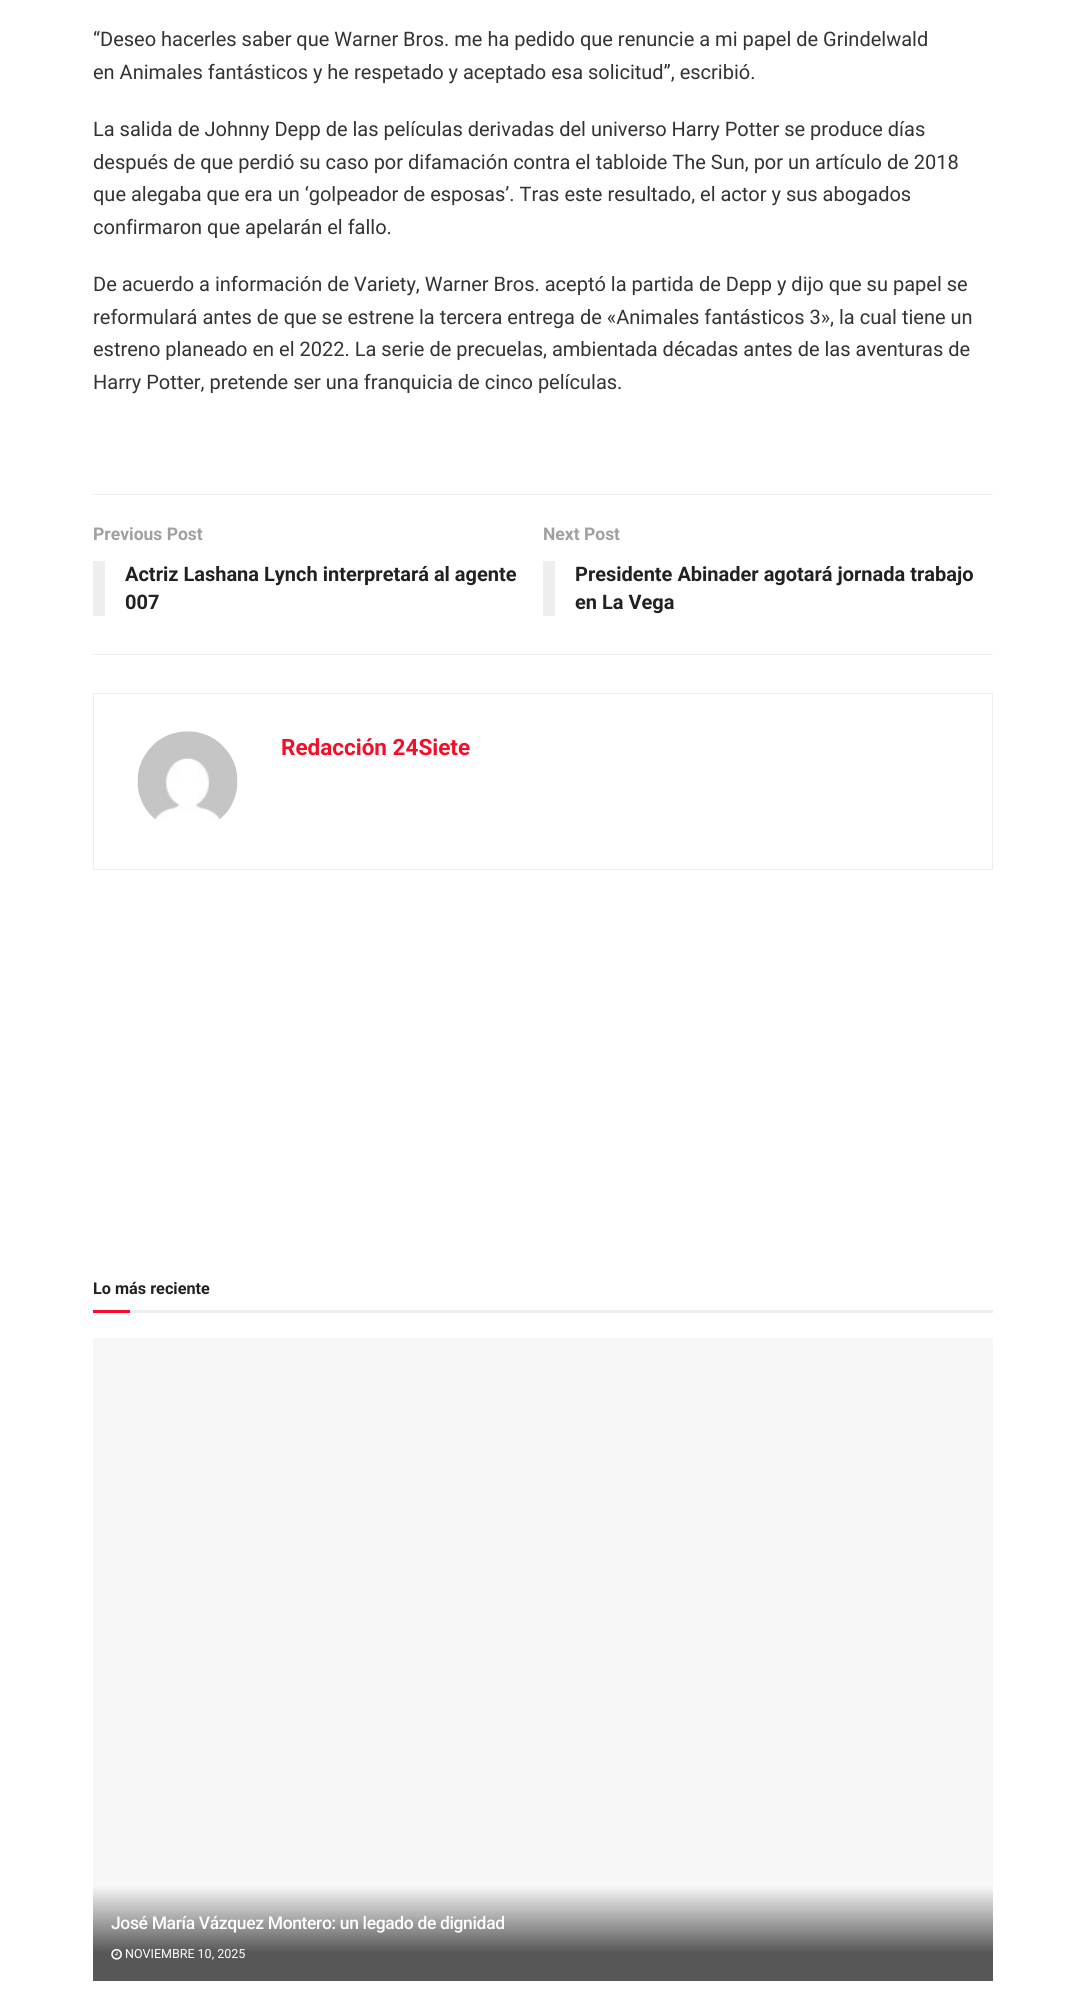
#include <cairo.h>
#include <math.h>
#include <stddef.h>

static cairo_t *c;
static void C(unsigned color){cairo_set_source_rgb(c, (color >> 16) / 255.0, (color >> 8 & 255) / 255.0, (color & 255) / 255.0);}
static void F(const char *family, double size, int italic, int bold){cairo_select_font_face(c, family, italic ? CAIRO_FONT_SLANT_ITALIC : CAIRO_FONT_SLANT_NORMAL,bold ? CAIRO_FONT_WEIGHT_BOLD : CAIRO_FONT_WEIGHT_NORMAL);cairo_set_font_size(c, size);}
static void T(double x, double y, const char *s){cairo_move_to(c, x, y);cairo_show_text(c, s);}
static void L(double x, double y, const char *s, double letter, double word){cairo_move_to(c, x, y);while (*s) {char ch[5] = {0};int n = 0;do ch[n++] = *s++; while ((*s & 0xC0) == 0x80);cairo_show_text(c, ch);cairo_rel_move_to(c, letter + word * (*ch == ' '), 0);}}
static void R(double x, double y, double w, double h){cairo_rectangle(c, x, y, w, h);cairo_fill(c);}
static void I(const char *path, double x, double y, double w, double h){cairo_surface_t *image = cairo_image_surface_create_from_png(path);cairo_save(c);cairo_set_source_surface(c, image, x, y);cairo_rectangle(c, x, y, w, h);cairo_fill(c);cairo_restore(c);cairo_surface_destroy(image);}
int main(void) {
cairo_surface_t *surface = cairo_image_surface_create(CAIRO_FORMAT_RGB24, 1085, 1991);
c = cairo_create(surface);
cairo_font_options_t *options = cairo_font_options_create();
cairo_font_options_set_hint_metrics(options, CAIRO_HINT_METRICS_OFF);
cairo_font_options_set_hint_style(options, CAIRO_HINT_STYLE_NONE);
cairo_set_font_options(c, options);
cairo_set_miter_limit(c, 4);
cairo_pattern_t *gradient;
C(0xffffff);
cairo_paint(c);
F("Roboto",20,0,0);
C(0x333333);
T(93,46,"“Deseo hacerles saber que Warner Bros. me ha pedido que renuncie a mi papel de Grindelwald");
T(93,79,"en Animales fantásticos y he respetado y aceptado esa solicitud”, escribió.");
T(93,136,"La salida de Johnny Depp de las películas derivadas del universo Harry Potter se produce días");
T(93,169,"después de que perdió su caso por difamación contra el tabloide The Sun, por un artículo de 2018");
T(93,201,"que alegaba que era un ‘golpeador de esposas’. Tras este resultado, el actor y sus abogados");
T(93,234,"confirmaron que apelarán el fallo.");
T(93,291,"De acuerdo a información de Variety, Warner Bros. aceptó la partida de Depp y dijo que su papel se");
T(93,324,"reformulará antes de que se estrene la tercera entrega de «Animales fantásticos 3», la cual tiene un");
T(93,356,"estreno planeado en el 2022. La serie de precuelas, ambientada décadas antes de las aventuras de");
T(93,389,"Harry Potter, pretende ser una franquicia de cinco películas.");
C(0xeeeeee);
R(93,494,900,1);
R(93,654,900,1);
F("Roboto",17.5,0,1);
C(0xa0a0a0);
T(93,540,"Previous Post");
C(0xeeeeee);
R(93,561,12,55);
F("Roboto",20,0,1);
C(0x212121);
T(125,581,"Actriz Lashana Lynch interpretará al agente");
T(125,609,"007");
F("Roboto",17.5,0,1);
C(0xa0a0a0);
T(543,540,"Next Post");
C(0xeeeeee);
R(543,561,12,55);
F("Roboto",20,0,1);
C(0x212121);
T(575,581,"Presidente Abinader agotará jornada trabajo");
T(575,609,"en La Vega");
cairo_rectangle(c,93.5,693.5,899,176);
C(0xeeeeee);
cairo_set_line_width(c,1);
cairo_stroke(c);
I("1.png",137,731,101,89);
F("Roboto",22.5,0,1);
C(0xf70d28);
T(281,755,"Redacción 24Siete");
C(0xeeeeee);
R(130,1310,863,3);
F("Roboto",16.25,0,1);
C(0x212121);
T(93,1294,"Lo más reciente");
C(0xf70d28);
R(93,1310,37,3);
C(0xf7f7f7);
R(93,1338,900,548);
gradient = cairo_pattern_create_linear(543,1886,543,1981);
cairo_pattern_add_color_stop_rgba(gradient,0,0.969,0.969,0.969,1);
cairo_pattern_add_color_stop_rgba(gradient,.7,0.341,0.341,0.341,1);
cairo_set_source(c,gradient);
cairo_pattern_destroy(gradient);
R(93,1886,900,95);
F("Roboto Medium",17.5,0,0);
C(0xffffff);
L(111,1929,"José María Vázquez Montero: un legado de dignidad",-.35,0);
I("2.png",111,1948,11,12);
F("Roboto",12.5,0,0);
T(125,1958,"NOVIEMBRE 10, 2025");
cairo_surface_write_to_png(surface, "o.png");
cairo_font_options_destroy(options);
cairo_destroy(c);
cairo_surface_destroy(surface);
return 0;
}
